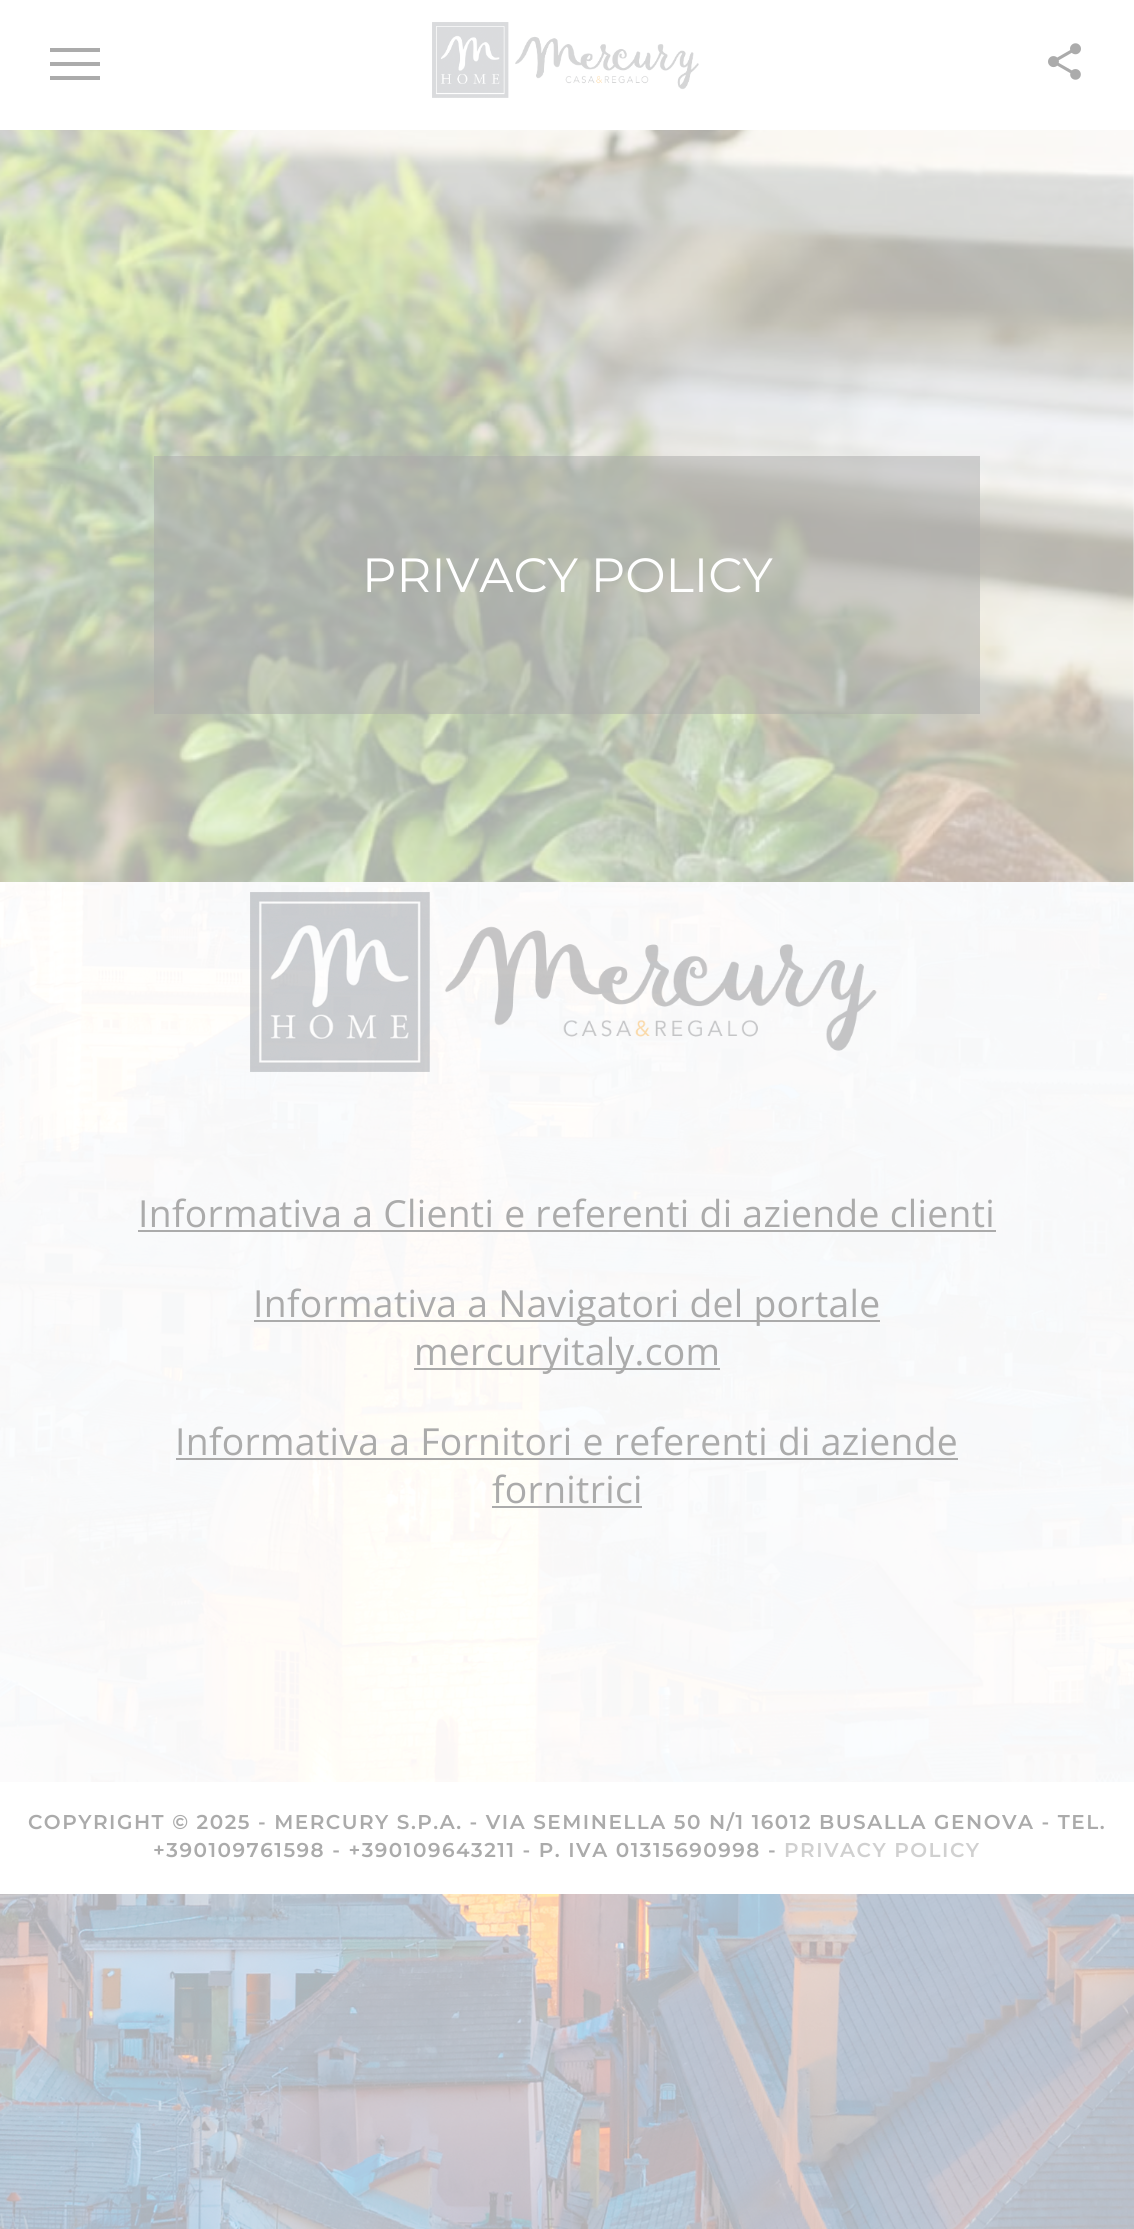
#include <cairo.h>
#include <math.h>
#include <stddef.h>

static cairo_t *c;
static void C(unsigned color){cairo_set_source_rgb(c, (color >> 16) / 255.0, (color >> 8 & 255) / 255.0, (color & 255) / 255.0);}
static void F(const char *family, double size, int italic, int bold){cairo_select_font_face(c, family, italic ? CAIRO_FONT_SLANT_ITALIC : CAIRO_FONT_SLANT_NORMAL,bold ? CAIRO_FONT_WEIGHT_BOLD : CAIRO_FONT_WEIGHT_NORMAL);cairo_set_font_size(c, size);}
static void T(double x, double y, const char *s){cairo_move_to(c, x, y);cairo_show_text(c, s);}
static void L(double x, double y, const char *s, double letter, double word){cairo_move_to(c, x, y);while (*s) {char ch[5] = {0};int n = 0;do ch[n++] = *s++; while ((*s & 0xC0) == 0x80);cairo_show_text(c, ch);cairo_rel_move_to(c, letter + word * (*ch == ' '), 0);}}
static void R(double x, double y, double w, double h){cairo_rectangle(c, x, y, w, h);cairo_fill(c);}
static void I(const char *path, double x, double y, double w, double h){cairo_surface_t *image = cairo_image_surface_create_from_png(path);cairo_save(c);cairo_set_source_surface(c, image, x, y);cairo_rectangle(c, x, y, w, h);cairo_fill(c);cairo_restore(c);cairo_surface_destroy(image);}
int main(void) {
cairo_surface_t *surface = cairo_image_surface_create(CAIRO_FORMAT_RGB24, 1134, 2229);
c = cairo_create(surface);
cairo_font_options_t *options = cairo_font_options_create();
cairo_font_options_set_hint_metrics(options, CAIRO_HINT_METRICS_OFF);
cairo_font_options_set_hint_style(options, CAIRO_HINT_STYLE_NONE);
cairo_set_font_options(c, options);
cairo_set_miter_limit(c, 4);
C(0xffffff);
cairo_paint(c);
C(0xababab);
R(50,62,50,4);
R(50,48,50,4);
R(50,76,50,4);
I("1.png",432,22,267,76);
I("2.png",1048,43,33,37);
I("3.png",0,130,1134,2099);
cairo_set_source_rgba(c,1,1,1,0.9);
R(0,130,1134,1652);
I("4.png",0,130,1134,752);
cairo_set_source_rgba(c,0.671,0.671,0.671,0.5);
R(154,456,826,258);
F("Montserrat",48,0,0);
C(0xffffff);
T(362,592,"PRIVACY POLICY");
F("Open Sans",37.3,0,0);
C(0xababab);
L(138,1227,"Informativa a Clienti e referenti di aziende clienti",.3,0);
R(138,1230,858,2);
R(254,1320,626,2);
L(253,1317,"Informativa a Navigatori del portale",.3,0);
R(414,1368,306,2);
L(414,1365,"mercuryitaly.com",.3,0);
L(175,1455,"Informativa a Fornitori e referenti di aziende",.3,0);
R(176,1458,782,2);
L(492,1503,"fornitrici",.3,0);
R(492,1506,150,2);
C(0xffffff);
R(0,1782,1134,112);
F("Montserrat SemiBold",20,0,0);
C(0xababab);
L(28,1829,"COPYRIGHT © 2025 - MERCURY S.P.A. - VIA SEMINELLA 50 N/1 16012 BUSALLA GENOVA - TEL.",1.5,0);
L(153,1857,"+390109761598 - +390109643211 - P. IVA 01315690998 -",1.5,0);
C(0xd0d0d0);
L(784,1857,"PRIVACY POLICY",1.5,0);
I("5.png",250,892,627,180);
cairo_surface_write_to_png(surface, "o.png");
cairo_font_options_destroy(options);
cairo_destroy(c);
cairo_surface_destroy(surface);
return 0;
}
